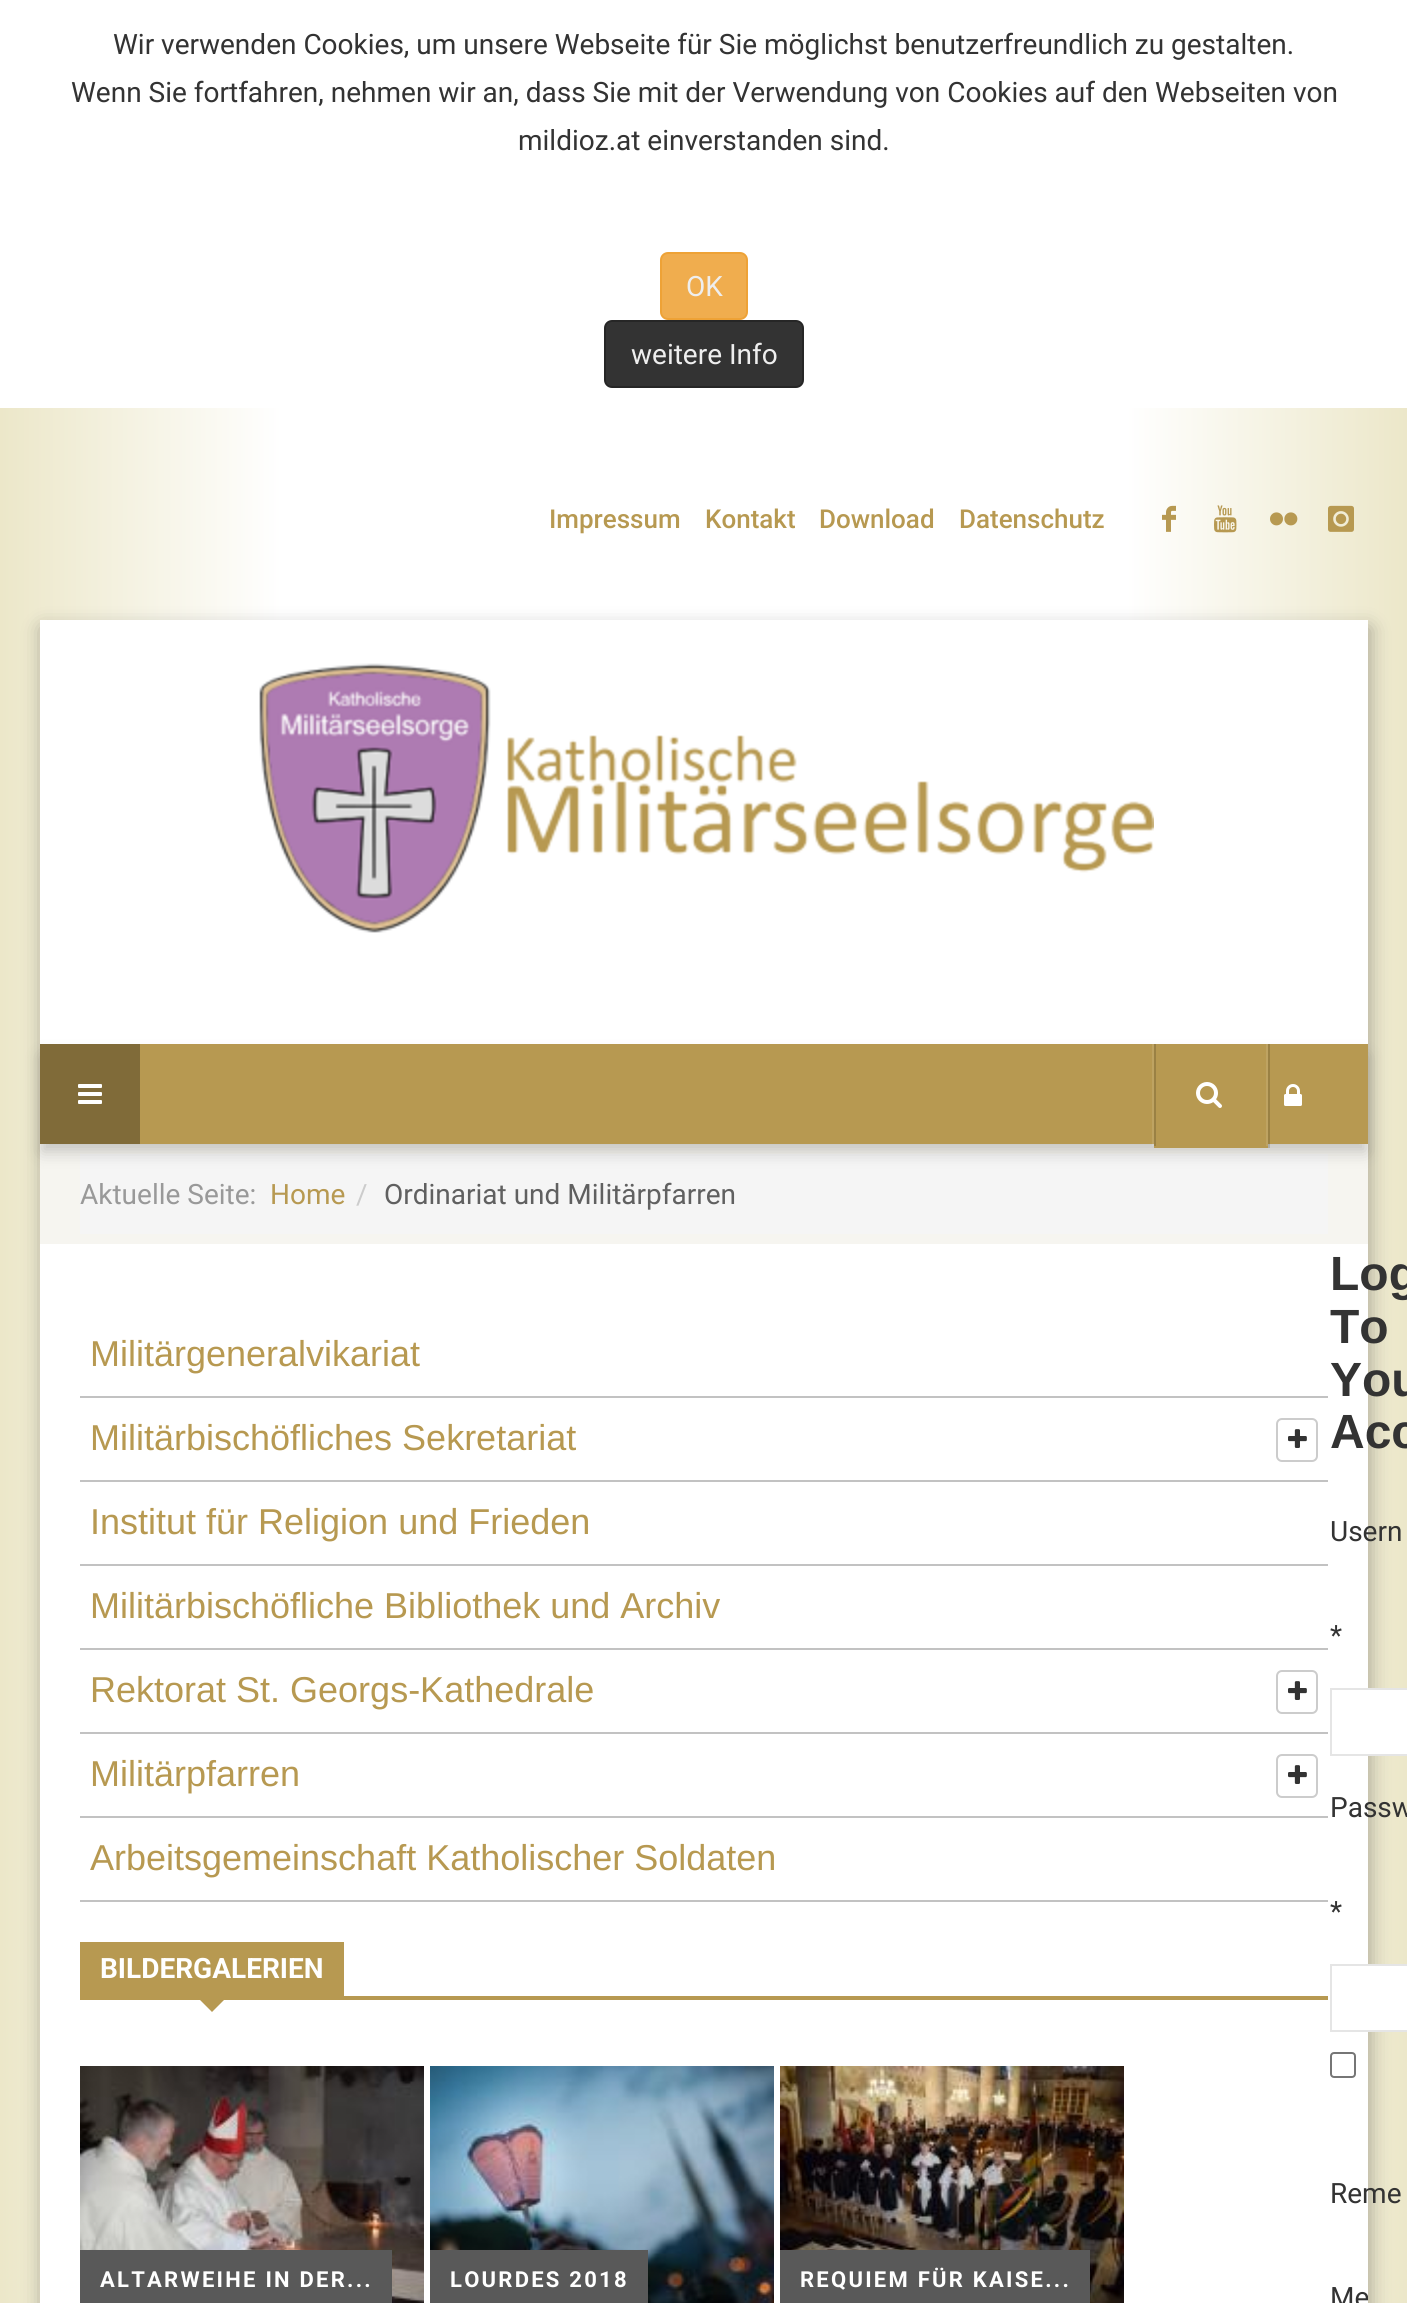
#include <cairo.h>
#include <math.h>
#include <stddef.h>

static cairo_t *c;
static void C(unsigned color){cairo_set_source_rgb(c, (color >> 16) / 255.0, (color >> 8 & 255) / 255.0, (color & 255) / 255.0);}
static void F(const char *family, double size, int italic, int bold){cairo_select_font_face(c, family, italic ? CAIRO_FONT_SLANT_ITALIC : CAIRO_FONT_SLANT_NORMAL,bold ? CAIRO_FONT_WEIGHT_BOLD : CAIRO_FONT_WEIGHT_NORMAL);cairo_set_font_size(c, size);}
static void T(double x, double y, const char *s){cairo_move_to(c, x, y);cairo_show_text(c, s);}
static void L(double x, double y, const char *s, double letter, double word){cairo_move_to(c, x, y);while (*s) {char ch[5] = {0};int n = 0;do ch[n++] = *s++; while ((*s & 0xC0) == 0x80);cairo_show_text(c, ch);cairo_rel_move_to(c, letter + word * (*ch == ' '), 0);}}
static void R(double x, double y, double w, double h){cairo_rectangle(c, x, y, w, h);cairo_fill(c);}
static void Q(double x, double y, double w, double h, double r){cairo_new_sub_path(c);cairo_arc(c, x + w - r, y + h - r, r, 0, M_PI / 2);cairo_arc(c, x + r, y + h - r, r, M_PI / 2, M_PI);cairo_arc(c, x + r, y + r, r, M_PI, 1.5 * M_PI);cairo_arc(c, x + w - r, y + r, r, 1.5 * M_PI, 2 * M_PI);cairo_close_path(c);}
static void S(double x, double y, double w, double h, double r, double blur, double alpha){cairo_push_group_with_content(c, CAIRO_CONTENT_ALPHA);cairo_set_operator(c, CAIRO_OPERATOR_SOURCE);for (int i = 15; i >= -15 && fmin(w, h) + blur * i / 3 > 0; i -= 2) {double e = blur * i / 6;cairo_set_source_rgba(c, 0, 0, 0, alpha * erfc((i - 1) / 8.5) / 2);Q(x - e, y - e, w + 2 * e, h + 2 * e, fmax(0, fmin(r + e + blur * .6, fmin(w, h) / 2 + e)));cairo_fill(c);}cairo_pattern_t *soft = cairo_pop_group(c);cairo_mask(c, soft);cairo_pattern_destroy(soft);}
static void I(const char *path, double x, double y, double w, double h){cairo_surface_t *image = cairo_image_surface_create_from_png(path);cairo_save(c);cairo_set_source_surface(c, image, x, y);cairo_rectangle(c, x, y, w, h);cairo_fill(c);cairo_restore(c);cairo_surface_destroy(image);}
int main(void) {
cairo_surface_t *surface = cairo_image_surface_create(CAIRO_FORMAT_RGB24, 1407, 2303);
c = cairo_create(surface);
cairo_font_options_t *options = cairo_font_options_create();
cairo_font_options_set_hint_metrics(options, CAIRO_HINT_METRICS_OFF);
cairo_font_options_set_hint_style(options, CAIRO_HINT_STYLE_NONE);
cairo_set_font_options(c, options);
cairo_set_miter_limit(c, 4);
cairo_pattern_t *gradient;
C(0xffffff);
cairo_paint(c);
F("Roboto",28,0,0);
C(0x333333);
T(113,54,"Wir verwenden Cookies, um unsere Webseite für Sie möglichst benutzerfreundlich zu gestalten.");
T(71,102,"Wenn Sie fortfahren, nehmen wir an, dass Sie mit der Verwendung von Cookies auf den Webseiten von");
T(518,150,"mildioz.at einverstanden sind.");
C(0xf0ad4e);
Q(661,253,86,66,7);
cairo_fill_preserve(c);
C(0xeea236);
cairo_stroke(c);
C(0xeeeeee);
T(686,296,"OK");
C(0x333333);
Q(605,321,198,66,7);
cairo_fill_preserve(c);
C(0x262626);
cairo_stroke(c);
C(0xeeeeee);
T(631,364,"weitere Info");
gradient = cairo_pattern_create_linear(0,2040,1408,2040);
cairo_pattern_add_color_stop_rgba(gradient,0,0.925,0.906,0.788,1);
cairo_pattern_add_color_stop_rgba(gradient,.2,1,1,1,1);
cairo_pattern_add_color_stop_rgba(gradient,.8,1,1,1,1);
cairo_pattern_add_color_stop_rgba(gradient,1,0.925,0.906,0.788,1);
cairo_set_source(c,gradient);
cairo_pattern_destroy(gradient);
R(0,408,1407,1895);
F("Roboto Medium",26,0,0);
C(0xb79951);
T(549,528,"Impressum");
T(705,528,"Kontakt");
T(819,528,"Download");
T(959,528,"Datenschutz");
I("1.png",1162,505,14,27);
I("2.png",1214,505,23,28);
I("3.png",1270,512,28,14);
I("4.png",1328,505,26,27);
C(0x000000);
S(42,628,1328,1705,0,10,.3);
C(0xffffff);
R(40,620,1328,1683);
C(0xf6f5f0);
R(40,1144,1328,100);
C(0xf5f5f5);
R(80,1154,1248,80);
F("Roboto",28,0,0);
C(0x999999);
T(80,1204,"Aktuelle Seite:");
C(0xb79951);
T(270,1204,"Home");
C(0xcccccc);
T(356,1204,"/");
C(0x606060);
T(384,1204,"Ordinariat und Militärpfarren");
C(0xc2c2c2);
R(80,1396,1248,2);
F("Liberation Sans",36,0,0);
C(0xb79951);
T(90,1366,"Militärgeneralvikariat");
C(0xc2c2c2);
R(80,1480,1248,2);
C(0xb79951);
T(90,1450,"Militärbischöfliches Sekretariat");
Q(1277,1419,40,42,5);
C(0xcccccc);
cairo_stroke(c);
I("5.png",1288,1429,19,19);
C(0xc2c2c2);
R(80,1564,1248,2);
C(0xb79951);
T(90,1534,"Institut für Religion und Frieden");
C(0xc2c2c2);
R(80,1648,1248,2);
C(0xb79951);
T(90,1618,"Militärbischöfliche Bibliothek und Archiv");
C(0xc2c2c2);
R(80,1732,1248,2);
C(0xb79951);
T(90,1702,"Rektorat St. Georgs-Kathedrale");
Q(1277,1671,40,42,5);
C(0xcccccc);
cairo_stroke(c);
I("5.png",1288,1681,19,19);
C(0xc2c2c2);
R(80,1816,1248,2);
C(0xb79951);
T(90,1786,"Militärpfarren");
Q(1277,1755,40,42,5);
C(0xcccccc);
cairo_stroke(c);
I("5.png",1288,1765,19,19);
C(0xc2c2c2);
R(80,1900,1248,2);
C(0xb79951);
T(90,1870,"Arbeitsgemeinschaft Katholischer Soldaten");
R(80,1996,1248,4);
R(80,1942,264,54);
F("Roboto",28,0,1);
C(0xffffff);
T(100,1978,"BILDERGALERIEN");
C(0xb79951);
cairo_new_path(c);
cairo_move_to(c,192,1992);
cairo_line_to(c,232,1992);
cairo_line_to(c,212,2012);
cairo_close_path(c);
cairo_fill(c);
I("6.png",80,2066,344,237);
C(0x595959);
R(80,2250,312,53);
F("Roboto",22,0,1);
C(0xffffff);
L(100,2287,"ALTARWEIHE IN DER...",2.25,0);
I("7.png",430,2066,344,237);
C(0x595959);
R(430,2250,218,53);
C(0xffffff);
L(450,2287,"LOURDES 2018",2.25,0);
I("8.png",780,2066,344,237);
C(0x595959);
R(780,2250,310,53);
C(0xffffff);
L(800,2287,"REQUIEM FÜR KAISE...",2.25,0);
I("9.png",259,663,895,270);
C(0x000000);
S(42,1056,1324,96,0,8,.2);
C(0xb79951);
R(140,1044,1228,100);
C(0x806b39);
R(40,1044,100,100);
I("10.png",78,1084,24,20);
C(0xb79951);
R(1154,1144,114,4);
C(0xbea362);
R(1266,1044,2,102);
C(0x9a8144);
R(1154,1044,2,102);
cairo_set_source_rgba(c,1,1,1,0.1);
R(1152,1044,2,102);
I("11.png",1196,1082,26,26);
cairo_set_source_rgba(c,0,0,0,0.16);
R(1268,1044,2,104);
I("12.png",1284,1084,18,22);
F("Liberation Sans",48,0,1);
C(0x333333);
T(1330,1290,"Log");
T(1330,1343,"To");
T(1330,1396,"You");
T(1330,1448,"Acc");
F("Roboto",28,0,0);
T(1330,1541,"Usern");
T(1330,1645,"*");
C(0xffffff);
R(1368,1690,39,64);
cairo_rectangle(c,1331,1689,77,66);
C(0xe5e5e5);
cairo_stroke(c);
C(0x333333);
T(1330,1817,"Passw");
T(1330,1921,"*");
C(0xffffff);
R(1368,1966,39,64);
cairo_rectangle(c,1331,1965,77,66);
C(0xe5e5e5);
cairo_stroke(c);
Q(1331,2053,24,24,3);
C(0x767676);
cairo_stroke(c);
C(0x333333);
T(1330,2203,"Reme");
T(1330,2307,"Me");
cairo_surface_write_to_png(surface, "o.png");
cairo_font_options_destroy(options);
cairo_destroy(c);
cairo_surface_destroy(surface);
return 0;
}
